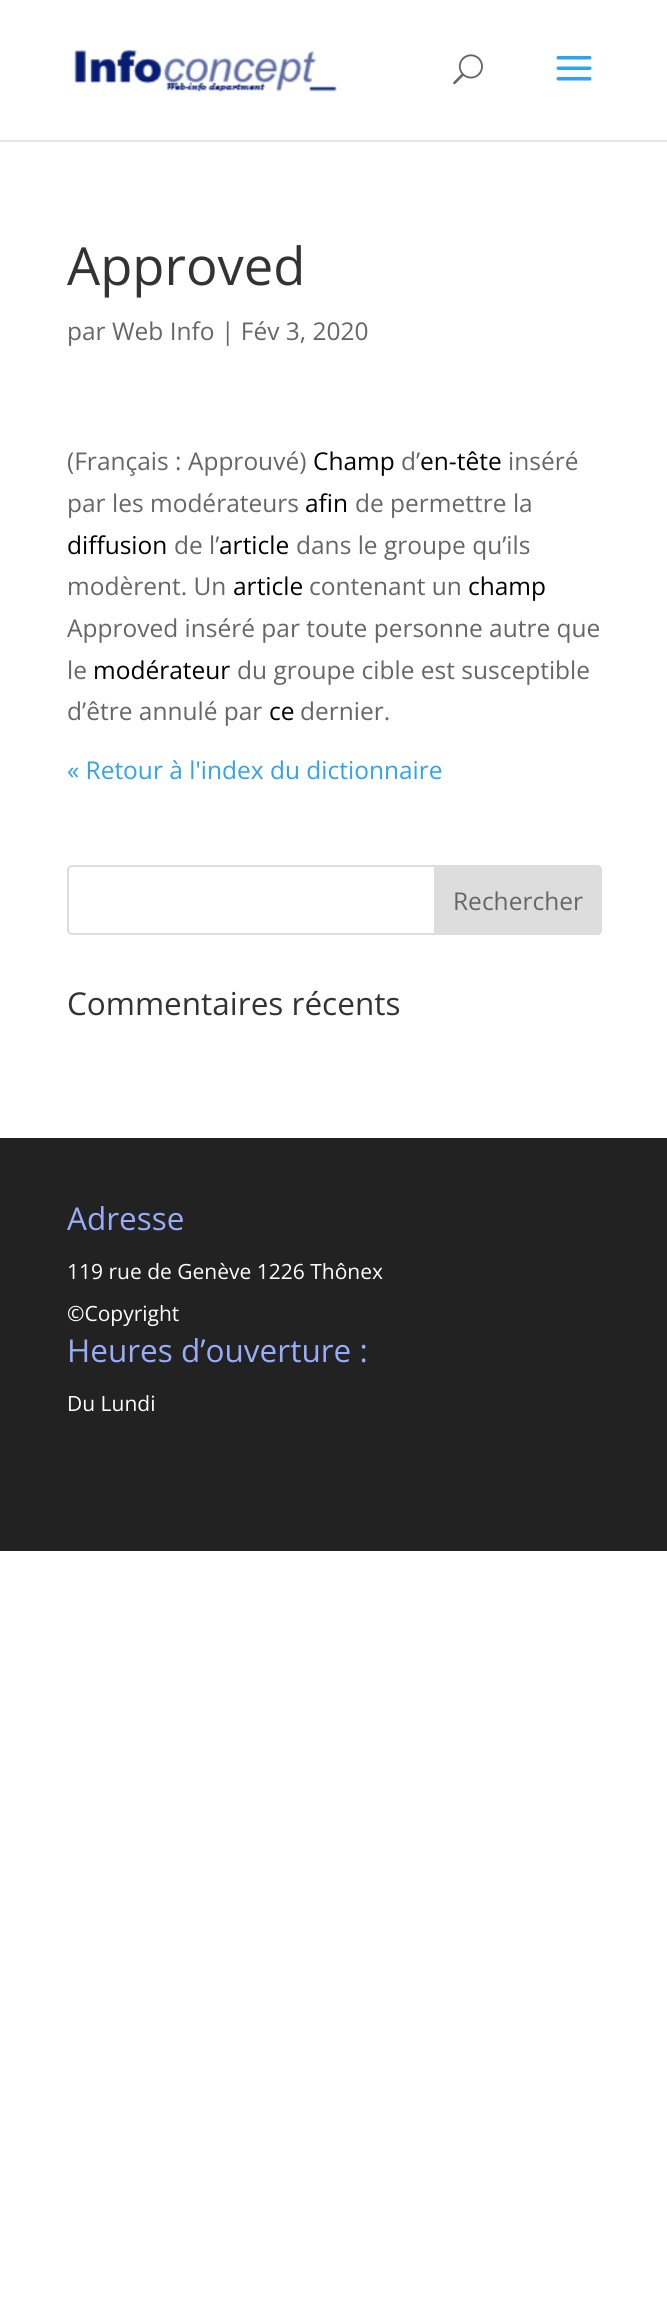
#include <cairo.h>
#include <math.h>
#include <stddef.h>

static cairo_t *c;
static void C(unsigned color){cairo_set_source_rgb(c, (color >> 16) / 255.0, (color >> 8 & 255) / 255.0, (color & 255) / 255.0);}
static void F(const char *family, double size, int italic, int bold){cairo_select_font_face(c, family, italic ? CAIRO_FONT_SLANT_ITALIC : CAIRO_FONT_SLANT_NORMAL,bold ? CAIRO_FONT_WEIGHT_BOLD : CAIRO_FONT_WEIGHT_NORMAL);cairo_set_font_size(c, size);}
static void T(double x, double y, const char *s){cairo_move_to(c, x, y);cairo_show_text(c, s);}
static void R(double x, double y, double w, double h){cairo_rectangle(c, x, y, w, h);cairo_fill(c);}
static void Q(double x, double y, double w, double h, double r){cairo_new_sub_path(c);cairo_arc(c, x + w - r, y + h - r, r, 0, M_PI / 2);cairo_arc(c, x + r, y + h - r, r, M_PI / 2, M_PI);cairo_arc(c, x + r, y + r, r, M_PI, 1.5 * M_PI);cairo_arc(c, x + w - r, y + r, r, 1.5 * M_PI, 2 * M_PI);cairo_close_path(c);}
static void I(const char *path, double x, double y, double w, double h){cairo_surface_t *image = cairo_image_surface_create_from_png(path);cairo_save(c);cairo_set_source_surface(c, image, x, y);cairo_rectangle(c, x, y, w, h);cairo_fill(c);cairo_restore(c);cairo_surface_destroy(image);}
int main(void) {
cairo_surface_t *surface = cairo_image_surface_create(CAIRO_FORMAT_RGB24, 667, 2300);
c = cairo_create(surface);
cairo_font_options_t *options = cairo_font_options_create();
cairo_font_options_set_hint_metrics(options, CAIRO_HINT_METRICS_OFF);
cairo_font_options_set_hint_style(options, CAIRO_HINT_STYLE_NONE);
cairo_set_font_options(c, options);
cairo_set_miter_limit(c, 4);
C(0xffffff);
cairo_paint(c);
C(0xe6e6e6);
cairo_new_path(c);
cairo_move_to(c,0,140);
cairo_line_to(c,0,142);
cairo_line_to(c,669,142);
cairo_line_to(c,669,2);
cairo_line_to(c,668,2);
cairo_line_to(c,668,140);
cairo_close_path(c);
cairo_fill(c);
I("1.png",74,49,263,43);
I("2.png",453,54,30,31);
I("3.png",556,56,36,25);
F("Open Sans",52.5,0,0);
C(0x333333);
T(67,285,"Approved");
F("Open Sans",24.5,0,0);
C(0x666666);
T(67,340,"par Web Info | Fév 3, 2020");
T(67,470,"(Français : Approuvé)");
C(0x000000);
T(313,470,"Champ");
C(0x666666);
T(401,470,"d’");
C(0x000000);
T(420,470,"en-tête");
C(0x666666);
T(508,470,"inséré");
T(67,512,"par les modérateurs");
C(0x000000);
T(305,512,"afin");
C(0x666666);
T(355,512,"de permettre la");
C(0x000000);
T(67,554,"diffusion");
C(0x666666);
T(174,554,"de l’");
C(0x000000);
T(219,554,"article");
C(0x666666);
T(296,554,"dans le groupe qu’ils");
T(67,595,"modèrent. Un");
C(0x000000);
T(233,595,"article");
C(0x666666);
T(309,595,"contenant un");
C(0x000000);
T(468,595,"champ");
C(0x666666);
T(67,637,"Approved inséré par toute personne autre que");
T(67,679,"le");
C(0x000000);
T(93,679,"modérateur");
C(0x666666);
T(237,679,"du groupe cible est susceptible");
T(67,720,"d’être annulé par");
C(0x000000);
T(269,720,"ce");
C(0x666666);
T(300,720,"dernier.");
C(0x2ea3f2);
T(67,779,"« Retour à l'index du dictionnaire");
Q(68,866,533,68,4);
C(0xdddddd);
cairo_stroke(c);
cairo_new_path(c);
cairo_move_to(c,435,866);
cairo_line_to(c,597,866);
cairo_curve_to(c,599,866,601,868,601,870);
cairo_line_to(c,601,930);
cairo_curve_to(c,601,932,599,934,597,934);
cairo_line_to(c,435,934);
cairo_close_path(c);
cairo_fill_preserve(c);
cairo_stroke(c);
C(0x666666);
T(453,910,"Rechercher");
F("Open Sans",31.5,0,0);
C(0x333333);
T(67,1015,"Commentaires récents");
C(0x222222);
R(0,1138,667,413);
C(0x98acfa);
T(67,1230,"Adresse");
F("Open Sans",21,0,0);
C(0xffffff);
T(67,1279,"119 rue de Genève 1226 Thônex");
T(67,1321,"©Copyright");
F("Open Sans",31.5,0,0);
C(0x98acfa);
T(67,1362,"Heures d’ouverture :");
F("Open Sans",21,0,0);
C(0xffffff);
T(67,1411,"Du Lundi");
cairo_surface_write_to_png(surface, "o.png");
cairo_font_options_destroy(options);
cairo_destroy(c);
cairo_surface_destroy(surface);
return 0;
}
